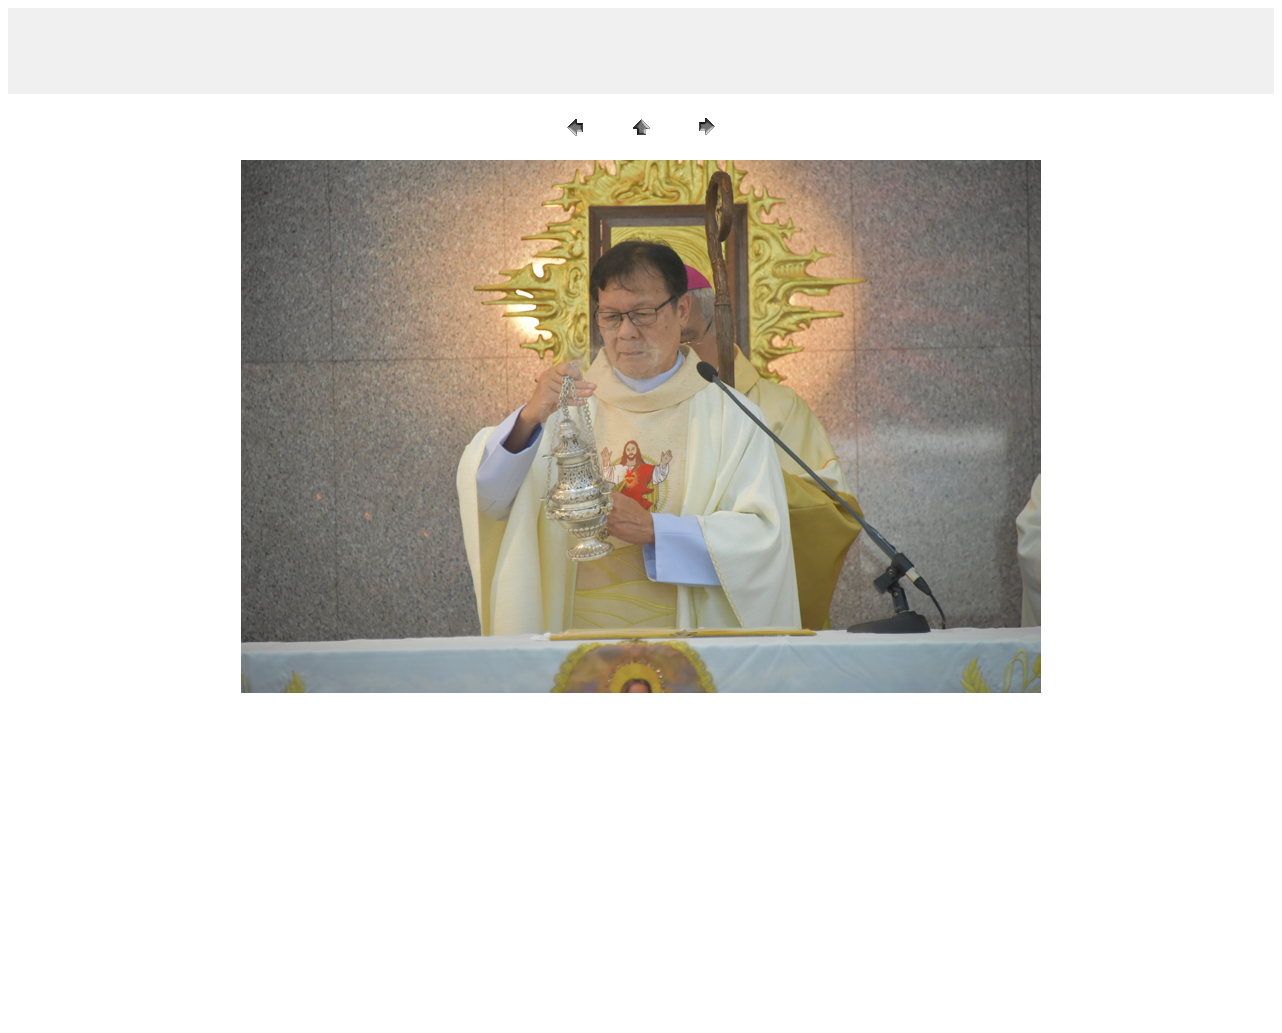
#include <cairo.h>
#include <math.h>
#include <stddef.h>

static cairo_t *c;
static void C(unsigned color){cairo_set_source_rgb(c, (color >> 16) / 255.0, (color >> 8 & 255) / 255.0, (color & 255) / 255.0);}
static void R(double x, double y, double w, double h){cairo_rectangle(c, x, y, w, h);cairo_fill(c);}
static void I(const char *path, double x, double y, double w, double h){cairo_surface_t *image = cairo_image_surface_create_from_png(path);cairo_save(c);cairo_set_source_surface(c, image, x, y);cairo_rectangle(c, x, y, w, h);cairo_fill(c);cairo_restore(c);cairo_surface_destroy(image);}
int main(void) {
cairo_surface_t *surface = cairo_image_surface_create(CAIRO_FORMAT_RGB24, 1282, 1033);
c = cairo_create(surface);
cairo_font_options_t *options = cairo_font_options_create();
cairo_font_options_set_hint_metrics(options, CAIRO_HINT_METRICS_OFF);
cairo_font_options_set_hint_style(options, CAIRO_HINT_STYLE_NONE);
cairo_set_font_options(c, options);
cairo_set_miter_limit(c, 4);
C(0xffffff);
cairo_paint(c);
C(0xf0f0f0);
R(8,8,1266,86);
I("1.png",567,119,16,17);
I("2.png",633,119,17,16);
I("3.png",699,118,16,17);
I("4.png",241,160,800,533);
cairo_surface_write_to_png(surface, "o.png");
cairo_font_options_destroy(options);
cairo_destroy(c);
cairo_surface_destroy(surface);
return 0;
}
